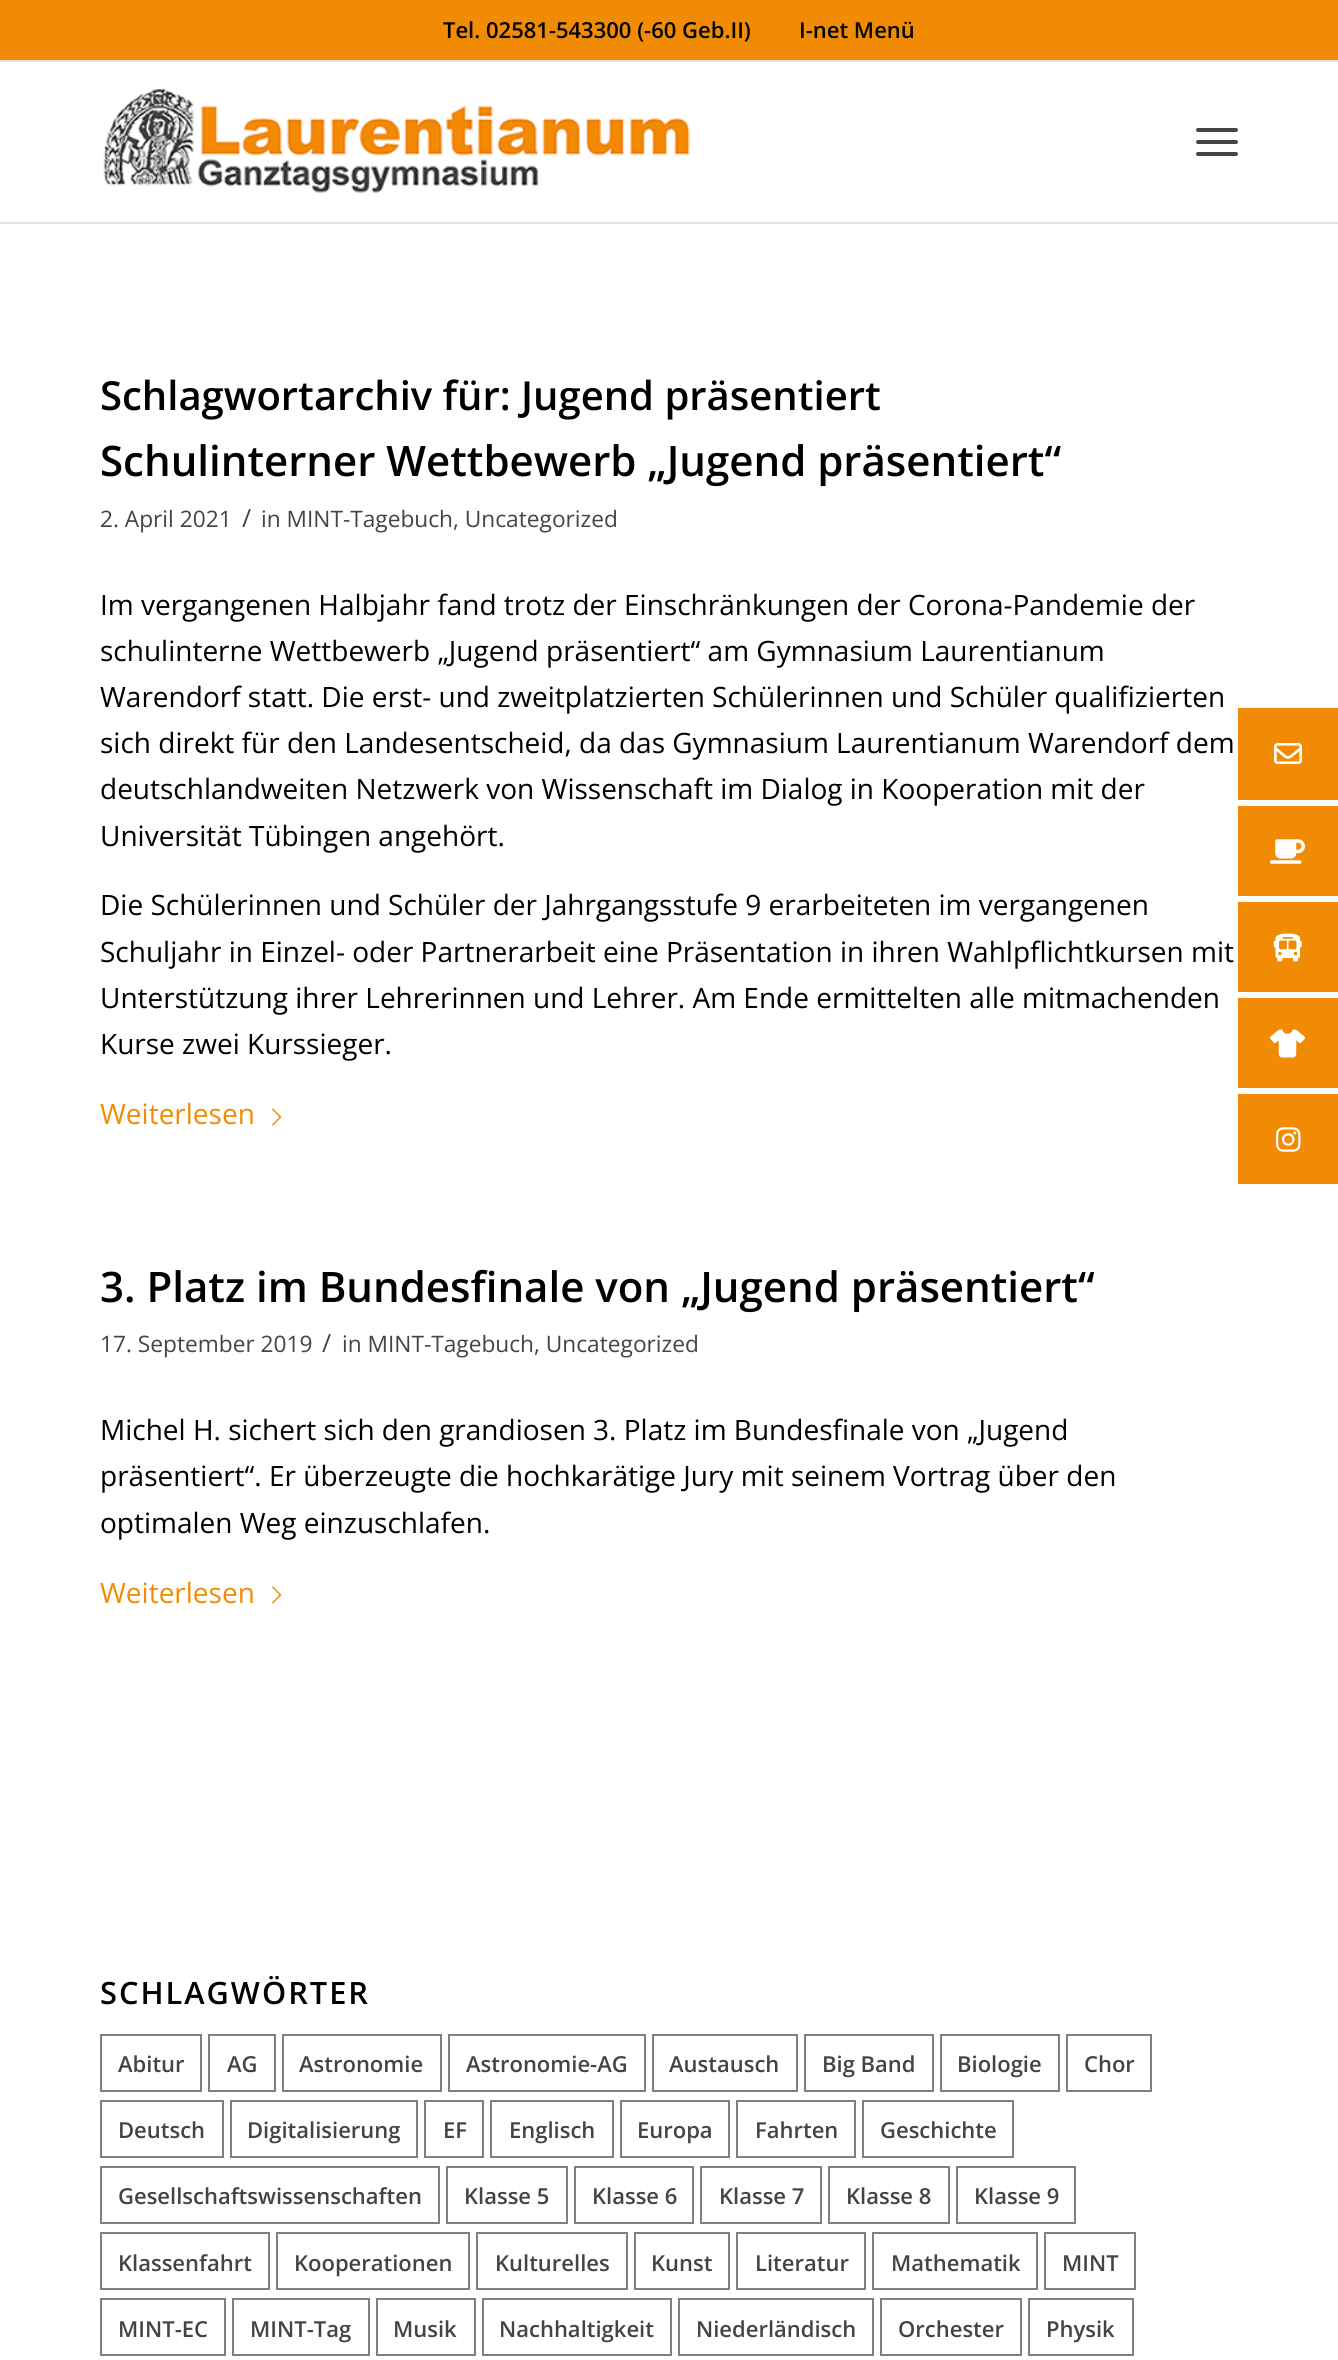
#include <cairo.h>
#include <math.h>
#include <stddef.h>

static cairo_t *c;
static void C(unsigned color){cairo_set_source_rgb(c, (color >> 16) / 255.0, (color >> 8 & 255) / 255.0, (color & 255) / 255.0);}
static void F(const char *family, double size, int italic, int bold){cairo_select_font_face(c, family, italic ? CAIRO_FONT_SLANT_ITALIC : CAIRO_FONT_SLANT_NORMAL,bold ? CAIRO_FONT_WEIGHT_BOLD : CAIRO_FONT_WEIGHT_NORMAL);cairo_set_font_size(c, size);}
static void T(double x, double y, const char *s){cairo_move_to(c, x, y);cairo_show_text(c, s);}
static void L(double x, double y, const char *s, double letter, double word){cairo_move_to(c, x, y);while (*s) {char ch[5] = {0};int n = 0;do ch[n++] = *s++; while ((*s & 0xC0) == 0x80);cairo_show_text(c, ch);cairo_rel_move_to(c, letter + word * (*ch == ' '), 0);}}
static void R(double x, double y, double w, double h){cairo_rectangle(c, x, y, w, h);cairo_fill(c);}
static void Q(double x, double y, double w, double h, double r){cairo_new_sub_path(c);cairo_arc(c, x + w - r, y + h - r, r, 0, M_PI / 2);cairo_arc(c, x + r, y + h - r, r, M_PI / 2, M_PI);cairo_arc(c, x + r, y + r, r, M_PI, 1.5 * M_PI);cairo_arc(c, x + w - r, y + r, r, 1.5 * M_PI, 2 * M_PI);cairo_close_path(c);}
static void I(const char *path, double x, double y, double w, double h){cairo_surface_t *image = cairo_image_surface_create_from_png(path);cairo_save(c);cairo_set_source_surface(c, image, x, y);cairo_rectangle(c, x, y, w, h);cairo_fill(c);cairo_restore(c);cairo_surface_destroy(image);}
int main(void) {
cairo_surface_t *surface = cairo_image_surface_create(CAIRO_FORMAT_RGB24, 1338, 2360);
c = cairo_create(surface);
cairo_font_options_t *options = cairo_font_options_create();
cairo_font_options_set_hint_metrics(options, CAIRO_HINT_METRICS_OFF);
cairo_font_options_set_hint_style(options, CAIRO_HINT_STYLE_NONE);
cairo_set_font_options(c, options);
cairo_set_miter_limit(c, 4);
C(0xffffff);
cairo_paint(c);
C(0xf28b04);
R(0,0,1338,60);
C(0xe2e2e2);
R(0,60,1338,2);
F("Open Sans SemiBold",22,0,0);
C(0x000000);
T(443,38,"Tel. 02581-543300 (-60 Geb.II)");
T(799,38,"I-net Menü");
C(0xe2e2e2);
R(0,222,1338,2);
I("1.png",103,88,587,105);
C(0x444444);
Q(1196,140,42,4,2);
cairo_fill(c);
Q(1196,128,42,4,2);
cairo_fill(c);
Q(1196,152,42,4,2);
cairo_fill(c);
F("Open Sans SemiBold",40,0,0);
C(0x000000);
T(100,410,"Schlagwortarchiv für: Jugend präsentiert");
F("Open Sans SemiBold",42,0,0);
T(100,476,"Schulinterner Wettbewerb „Jugend präsentiert“");
F("Open Sans",22.7,0,0);
C(0x444444);
T(100,527,"2. April 2021");
F("Open Sans",25,0,0);
T(242,527,"/");
F("Open Sans",22.7,0,0);
T(261,527,"in MINT-Tagebuch, Uncategorized");
F("Open Sans",28,0,0);
C(0x000000);
T(100,615,"Im vergangenen Halbjahr fand trotz der Einschränkungen der Corona-Pandemie der");
T(100,661,"schulinterne Wettbewerb „Jugend präsentiert“ am Gymnasium Laurentianum");
T(100,707,"Warendorf statt. Die erst- und zweitplatzierten Schülerinnen und Schüler qualifizierten");
T(100,753,"sich direkt für den Landesentscheid, da das Gymnasium Laurentianum Warendorf dem");
T(100,799,"deutschlandweiten Netzwerk von Wissenschaft im Dialog in Kooperation mit der");
T(100,846,"Universität Tübingen angehört.");
T(100,915,"Die Schülerinnen und Schüler der Jahrgangsstufe 9 erarbeiteten im vergangenen");
T(100,962,"Schuljahr in Einzel- oder Partnerarbeit eine Präsentation in ihren Wahlpflichtkursen mit");
T(100,1008,"Unterstützung ihrer Lehrerinnen und Lehrer. Am Ende ermittelten alle mitmachenden");
T(100,1054,"Kurse zwei Kurssieger.");
C(0xf28b04);
T(100,1124,"Weiterlesen");
I("2.png",272,1108,10,18);
F("Open Sans SemiBold",42,0,0);
C(0x000000);
T(100,1302,"3. Platz im Bundesfinale von „Jugend präsentiert“");
F("Open Sans",22.7,0,0);
C(0x444444);
T(100,1352,"17. September 2019");
F("Open Sans",25,0,0);
T(322,1352,"/");
F("Open Sans",22.7,0,0);
T(342,1352,"in MINT-Tagebuch, Uncategorized");
F("Open Sans",28,0,0);
C(0x000000);
T(100,1440,"Michel H. sichert sich den grandiosen 3. Platz im Bundesfinale von „Jugend");
T(100,1486,"präsentiert“. Er überzeugte die hochkarätige Jury mit seinem Vortrag über den");
T(100,1533,"optimalen Weg einzuschlafen.");
C(0xf28b04);
T(100,1603,"Weiterlesen");
I("2.png",272,1586,10,18);
F("Open Sans SemiBold",30.75,0,0);
C(0x000000);
L(100,2004,"SCHLAGWÖRTER",2,0);
cairo_rectangle(c,101,2035,100,56);
C(0x808080);
cairo_stroke(c);
F("Open Sans SemiBold",22,0,0);
C(0x444444);
T(118,2072,"Abitur");
cairo_rectangle(c,209,2035,66,56);
C(0x808080);
cairo_stroke(c);
C(0x444444);
T(227,2072,"AG");
cairo_rectangle(c,283,2035,158,56);
C(0x808080);
cairo_stroke(c);
C(0x444444);
T(299,2072,"Astronomie");
cairo_rectangle(c,449,2035,196,56);
C(0x808080);
cairo_stroke(c);
C(0x444444);
T(466,2072,"Astronomie-AG");
cairo_rectangle(c,653,2035,144,56);
C(0x808080);
cairo_stroke(c);
C(0x444444);
T(669,2072,"Austausch");
cairo_rectangle(c,805,2035,128,56);
C(0x808080);
cairo_stroke(c);
C(0x444444);
T(822,2072,"Big Band");
cairo_rectangle(c,941,2035,118,56);
C(0x808080);
cairo_stroke(c);
C(0x444444);
T(957,2072,"Biologie");
cairo_rectangle(c,1067,2035,84,56);
C(0x808080);
cairo_stroke(c);
C(0x444444);
T(1084,2072,"Chor");
cairo_rectangle(c,101,2101,122,56);
C(0x808080);
cairo_stroke(c);
C(0x444444);
T(118,2138,"Deutsch");
cairo_rectangle(c,231,2101,186,56);
C(0x808080);
cairo_stroke(c);
C(0x444444);
T(247,2138,"Digitalisierung");
cairo_rectangle(c,425,2101,58,56);
C(0x808080);
cairo_stroke(c);
C(0x444444);
T(443,2138,"EF");
cairo_rectangle(c,491,2101,122,56);
C(0x808080);
cairo_stroke(c);
C(0x444444);
T(509,2138,"Englisch");
cairo_rectangle(c,621,2101,108,56);
C(0x808080);
cairo_stroke(c);
C(0x444444);
T(637,2138,"Europa");
cairo_rectangle(c,737,2101,118,56);
C(0x808080);
cairo_stroke(c);
C(0x444444);
T(755,2138,"Fahrten");
cairo_rectangle(c,863,2101,150,56);
C(0x808080);
cairo_stroke(c);
C(0x444444);
T(880,2138,"Geschichte");
cairo_rectangle(c,101,2167,338,56);
C(0x808080);
cairo_stroke(c);
C(0x444444);
T(118,2204,"Gesellschaftswissenschaften");
cairo_rectangle(c,447,2167,120,56);
C(0x808080);
cairo_stroke(c);
C(0x444444);
T(464,2204,"Klasse 5");
cairo_rectangle(c,575,2167,118,56);
C(0x808080);
cairo_stroke(c);
C(0x444444);
T(592,2204,"Klasse 6");
cairo_rectangle(c,701,2167,120,56);
C(0x808080);
cairo_stroke(c);
C(0x444444);
T(719,2204,"Klasse 7");
cairo_rectangle(c,829,2167,120,56);
C(0x808080);
cairo_stroke(c);
C(0x444444);
T(846,2204,"Klasse 8");
cairo_rectangle(c,957,2167,118,56);
C(0x808080);
cairo_stroke(c);
C(0x444444);
T(974,2204,"Klasse 9");
cairo_rectangle(c,101,2233,168,56);
C(0x808080);
cairo_stroke(c);
C(0x444444);
T(118,2271,"Klassenfahrt");
cairo_rectangle(c,277,2233,192,56);
C(0x808080);
cairo_stroke(c);
C(0x444444);
T(294,2271,"Kooperationen");
cairo_rectangle(c,477,2233,150,56);
C(0x808080);
cairo_stroke(c);
C(0x444444);
T(495,2271,"Kulturelles");
cairo_rectangle(c,635,2233,94,56);
C(0x808080);
cairo_stroke(c);
C(0x444444);
T(651,2271,"Kunst");
cairo_rectangle(c,737,2233,128,56);
C(0x808080);
cairo_stroke(c);
C(0x444444);
T(755,2271,"Literatur");
cairo_rectangle(c,873,2233,164,56);
C(0x808080);
cairo_stroke(c);
C(0x444444);
T(891,2271,"Mathematik");
cairo_rectangle(c,1045,2233,90,56);
C(0x808080);
cairo_stroke(c);
C(0x444444);
T(1062,2271,"MINT");
cairo_rectangle(c,101,2299,124,56);
C(0x808080);
cairo_stroke(c);
C(0x444444);
T(118,2337,"MINT-EC");
cairo_rectangle(c,233,2299,136,56);
C(0x808080);
cairo_stroke(c);
C(0x444444);
T(250,2337,"MINT-Tag");
cairo_rectangle(c,377,2299,98,56);
C(0x808080);
cairo_stroke(c);
C(0x444444);
T(393,2337,"Musik");
cairo_rectangle(c,483,2299,188,56);
C(0x808080);
cairo_stroke(c);
C(0x444444);
T(499,2337,"Nachhaltigkeit");
cairo_rectangle(c,679,2299,194,56);
C(0x808080);
cairo_stroke(c);
C(0x444444);
T(696,2337,"Niederländisch");
cairo_rectangle(c,881,2299,140,56);
C(0x808080);
cairo_stroke(c);
C(0x444444);
T(898,2337,"Orchester");
cairo_rectangle(c,1029,2299,104,56);
C(0x808080);
cairo_stroke(c);
C(0x444444);
T(1046,2337,"Physik");
C(0xf28b04);
R(1238,708,100,92);
I("3.png",1274,743,28,21);
R(1238,806,100,90);
I("4.png",1270,839,35,25);
R(1238,902,100,90);
I("5.png",1273,933,29,29);
R(1238,998,100,90);
I("6.png",1270,1029,35,29);
R(1238,1094,100,90);
I("7.png",1276,1127,25,25);
cairo_surface_write_to_png(surface, "o.png");
cairo_font_options_destroy(options);
cairo_destroy(c);
cairo_surface_destroy(surface);
return 0;
}
